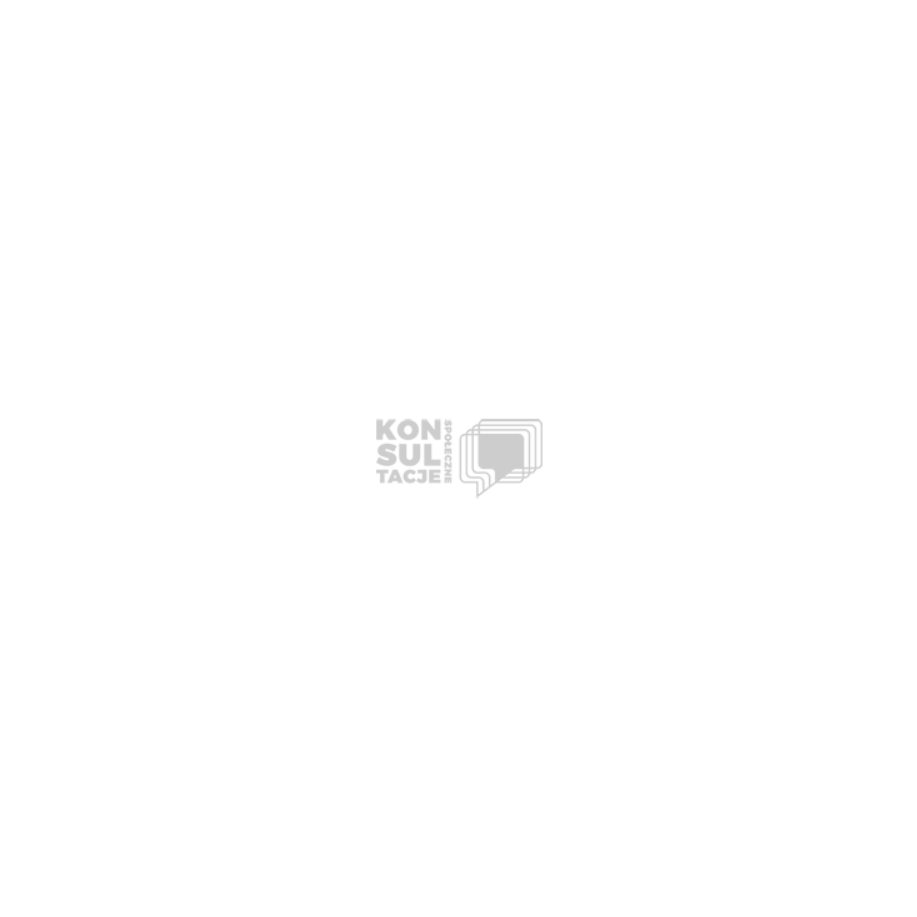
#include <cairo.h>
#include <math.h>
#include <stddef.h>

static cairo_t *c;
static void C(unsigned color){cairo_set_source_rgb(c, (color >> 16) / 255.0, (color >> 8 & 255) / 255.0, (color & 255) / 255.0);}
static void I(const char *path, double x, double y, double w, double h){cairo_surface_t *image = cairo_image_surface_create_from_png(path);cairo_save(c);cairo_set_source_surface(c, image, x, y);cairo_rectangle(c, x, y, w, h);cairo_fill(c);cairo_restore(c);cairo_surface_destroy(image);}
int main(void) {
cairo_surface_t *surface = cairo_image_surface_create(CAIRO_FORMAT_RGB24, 917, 917);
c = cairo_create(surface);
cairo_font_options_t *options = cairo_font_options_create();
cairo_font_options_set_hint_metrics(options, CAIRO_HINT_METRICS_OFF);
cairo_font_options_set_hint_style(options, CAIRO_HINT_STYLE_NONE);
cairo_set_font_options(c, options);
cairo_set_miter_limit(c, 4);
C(0xffffff);
cairo_paint(c);
I("1.png",376,418,167,81);
cairo_surface_write_to_png(surface, "o.png");
cairo_font_options_destroy(options);
cairo_destroy(c);
cairo_surface_destroy(surface);
return 0;
}
